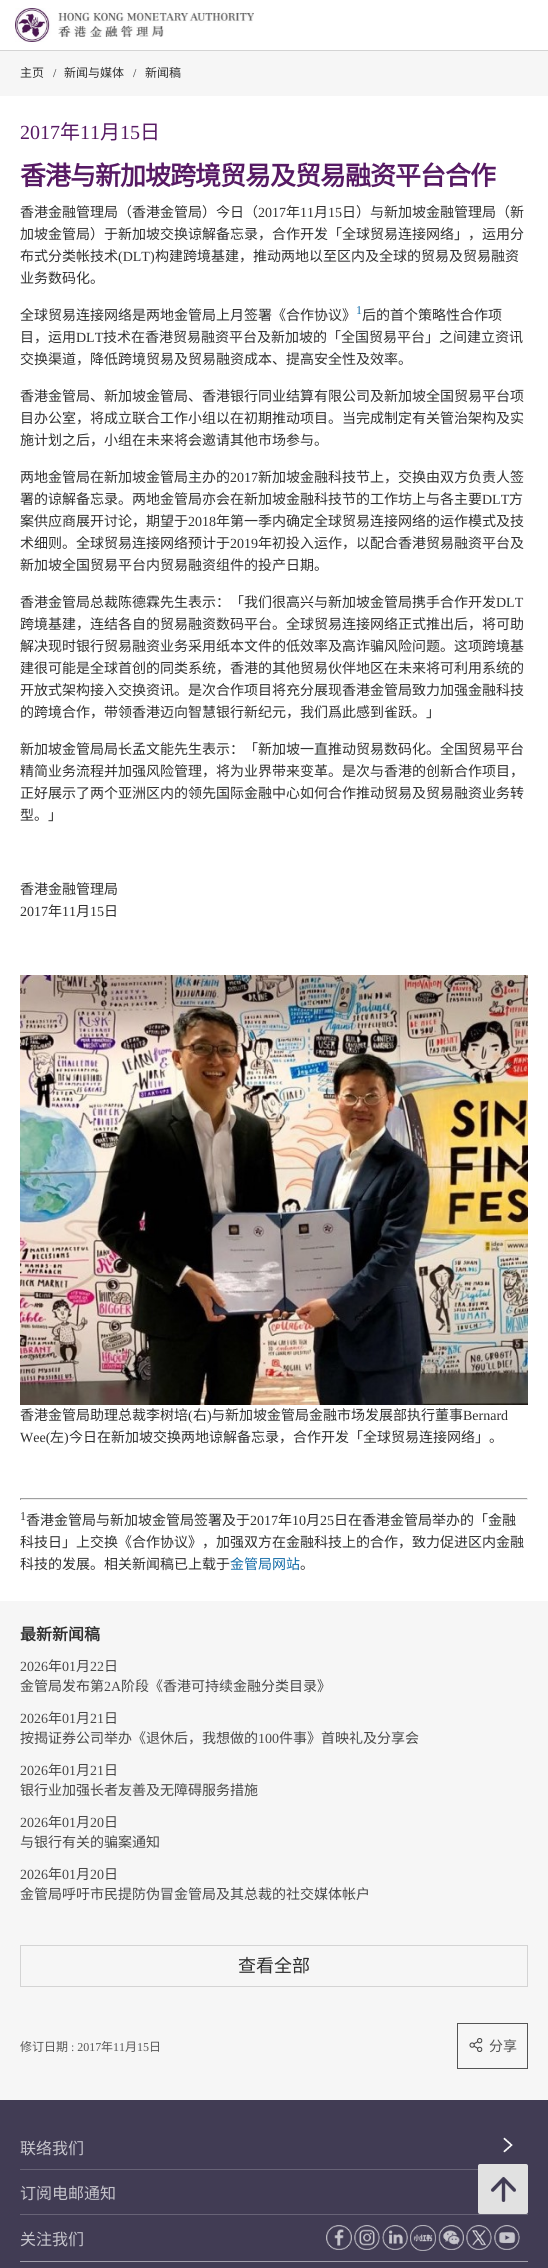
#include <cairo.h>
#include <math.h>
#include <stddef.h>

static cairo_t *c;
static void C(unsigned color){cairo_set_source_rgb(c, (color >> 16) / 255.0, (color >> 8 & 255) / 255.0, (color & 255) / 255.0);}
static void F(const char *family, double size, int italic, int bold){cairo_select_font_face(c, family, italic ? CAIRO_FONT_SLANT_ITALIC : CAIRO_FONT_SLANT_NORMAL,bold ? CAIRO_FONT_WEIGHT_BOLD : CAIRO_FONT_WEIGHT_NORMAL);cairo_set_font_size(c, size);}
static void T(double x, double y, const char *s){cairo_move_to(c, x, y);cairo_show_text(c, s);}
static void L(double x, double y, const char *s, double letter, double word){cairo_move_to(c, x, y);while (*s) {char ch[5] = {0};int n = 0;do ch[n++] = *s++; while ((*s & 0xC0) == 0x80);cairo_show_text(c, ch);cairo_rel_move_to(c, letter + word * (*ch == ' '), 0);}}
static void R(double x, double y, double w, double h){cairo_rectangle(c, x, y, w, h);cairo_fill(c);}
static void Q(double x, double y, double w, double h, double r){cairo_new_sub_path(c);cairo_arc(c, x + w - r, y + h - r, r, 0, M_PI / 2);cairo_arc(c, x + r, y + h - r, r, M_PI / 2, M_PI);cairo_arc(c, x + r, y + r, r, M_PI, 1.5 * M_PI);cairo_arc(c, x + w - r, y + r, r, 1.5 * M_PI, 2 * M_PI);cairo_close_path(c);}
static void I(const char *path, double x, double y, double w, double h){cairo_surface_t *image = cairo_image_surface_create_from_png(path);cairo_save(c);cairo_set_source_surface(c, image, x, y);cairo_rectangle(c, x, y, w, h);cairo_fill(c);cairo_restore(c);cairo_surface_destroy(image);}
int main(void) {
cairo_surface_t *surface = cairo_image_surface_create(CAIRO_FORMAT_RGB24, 548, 2268);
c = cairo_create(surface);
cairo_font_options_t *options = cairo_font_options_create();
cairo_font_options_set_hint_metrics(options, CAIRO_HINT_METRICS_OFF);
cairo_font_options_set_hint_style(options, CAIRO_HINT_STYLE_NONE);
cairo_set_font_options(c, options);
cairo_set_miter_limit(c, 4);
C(0xf6f6f6);
cairo_paint(c);
C(0xffffff);
R(0,0,548,50);
C(0xd4d4d4);
R(0,50,548,1);
I("1.png",15,8,239,34);
F("Noto Sans CJK SC",12,0,0);
C(0x303030);
T(20,77,"主页");
F("Liberation Serif",12,0,0);
T(53,77,"/");
F("Noto Sans CJK SC",12,0,0);
T(64,77,"新闻与媒体");
F("Liberation Serif",12,0,0);
T(133,77,"/");
F("Noto Sans CJK SC",12,0,0);
T(145,77,"新闻稿");
C(0xffffff);
R(0,96,548,1505);
F("Liberation Serif",20,0,0);
C(0x571a64);
T(20,139,"2017");
F("Noto Sans CJK SC",20,0,0);
T(60,139,"年");
F("Liberation Serif",20,0,0);
T(80,139,"11");
F("Noto Sans CJK SC",20,0,0);
T(100,139,"月");
F("Liberation Serif",20,0,0);
T(120,139,"15");
F("Noto Sans CJK SC",20,0,0);
T(140,139,"日");
F("Noto Sans CJK SC",26,0,1);
L(20,185,"香港与新加坡跨境贸易及贸易融资平台合作",-1,0);
F("Noto Sans CJK SC",14,0,0);
C(0x303030);
T(20,217,"香港金融管理局（香港金管局）今日（");
F("Liberation Serif",14,0,0);
T(258,217,"2017");
F("Noto Sans CJK SC",14,0,0);
T(286,217,"年");
F("Liberation Serif",14,0,0);
T(300,217,"11");
F("Noto Sans CJK SC",14,0,0);
T(314,217,"月");
F("Liberation Serif",14,0,0);
T(328,217,"15");
F("Noto Sans CJK SC",14,0,0);
T(342,217,"日）与新加坡金融管理局（新");
T(20,239,"加坡金管局）于新加坡交换谅解备忘录，合作开发「全球贸易连接网络」，运用分");
T(20,261,"布式分类帐技术");
F("Liberation Serif",14,0,0);
T(118,261,"(DLT)");
F("Noto Sans CJK SC",14,0,0);
T(155,261,"构建跨境基建，推动两地以至区内及全球的贸易及贸易融资");
T(20,283,"业务数码化。");
T(20,320,"全球贸易连接网络是两地金管局上月签署《合作协议》");
F("Liberation Serif",12,0,0);
C(0x126ba7);
T(356,314,"1");
F("Noto Sans CJK SC",14,0,0);
C(0x303030);
T(362,320,"后的首个策略性合作项");
T(20,342,"目，运用");
F("Liberation Serif",14,0,0);
T(76,342,"DLT");
F("Noto Sans CJK SC",14,0,0);
T(103,342,"技术在香港贸易融资平台及新加坡的「全国贸易平台」之间建立资讯");
T(20,364,"交换渠道，降低跨境贸易及贸易融资成本、提高安全性及效率。");
T(20,401,"香港金管局、新加坡金管局、香港银行同业结算有限公司及新加坡全国贸易平台项");
T(20,423,"目办公室，将成立联合工作小组以在初期推动项目。当完成制定有关管治架构及实");
T(20,445,"施计划之后，小组在未来将会邀请其他市场参与。");
T(20,482,"两地金管局在新加坡金管局主办的");
F("Liberation Serif",14,0,0);
T(230,482,"2017");
F("Noto Sans CJK SC",14,0,0);
T(258,482,"新加坡金融科技节上，交换由双方负责人签");
T(20,504,"署的谅解备忘录。两地金管局亦会在新加坡金融科技节的工作坊上与各主要");
F("Liberation Serif",14,0,0);
T(482,504,"DLT");
F("Noto Sans CJK SC",14,0,0);
T(509,504,"方");
T(20,526,"案供应商展开讨论，期望于");
F("Liberation Serif",14,0,0);
T(188,526,"2018");
F("Noto Sans CJK SC",14,0,0);
T(216,526,"年第一季内确定全球贸易连接网络的运作模式及技");
T(20,548,"术细则。全球贸易连接网络预计于");
F("Liberation Serif",14,0,0);
T(230,548,"2019");
F("Noto Sans CJK SC",14,0,0);
T(258,548,"年初投入运作，以配合香港贸易融资平台及");
T(20,570,"新加坡全国贸易平台内贸易融资组件的投产日期。");
T(20,607,"香港金管局总裁陈德霖先生表示：「我们很高兴与新加坡金管局携手合作开发");
F("Liberation Serif",14,0,0);
T(496,607,"DLT");
F("Noto Sans CJK SC",14,0,0);
T(20,629,"跨境基建，连结各自的贸易融资数码平台。全球贸易连接网络正式推出后，将可助");
T(20,651,"解决现时银行贸易融资业务采用纸本文件的低效率及高诈骗风险问题。这项跨境基");
T(20,673,"建很可能是全球首创的同类系统，香港的其他贸易伙伴地区在未来将可利用系统的");
T(20,695,"开放式架构接入交换资讯。是次合作项目将充分展现香港金管局致力加强金融科技");
T(20,717,"的跨境合作，带领香港迈向智慧银行新纪元，我们爲此感到雀跃。」");
T(20,754,"新加坡金管局局长孟文能先生表示：「新加坡一直推动贸易数码化。全国贸易平台");
T(20,776,"精简业务流程并加强风险管理，将为业界带来变革。是次与香港的创新合作项目，");
T(20,798,"正好展示了两个亚洲区内的领先国际金融中心如何合作推动贸易及贸易融资业务转");
T(20,820,"型。」");
T(20,894,"香港金融管理局");
F("Liberation Serif",14,0,0);
T(20,916,"2017");
F("Noto Sans CJK SC",14,0,0);
T(48,916,"年");
F("Liberation Serif",14,0,0);
T(62,916,"11");
F("Noto Sans CJK SC",14,0,0);
T(76,916,"月");
F("Liberation Serif",14,0,0);
T(90,916,"15");
F("Noto Sans CJK SC",14,0,0);
T(104,916,"日");
I("2.png",20,975,508,430);
T(20,1420,"香港金管局助理总裁李树培");
F("Liberation Serif",14,0,0);
T(188,1420,"(");
F("Noto Sans CJK SC",14,0,0);
T(193,1420,"右");
F("Liberation Serif",14,0,0);
T(207,1420,")");
F("Noto Sans CJK SC",14,0,0);
T(211,1420,"与新加坡金管局金融市场发展部执行董事");
F("Liberation Serif",14,0,0);
T(463,1420,"Bernard");
T(20,1442,"Wee(");
F("Noto Sans CJK SC",14,0,0);
T(50,1442,"左");
F("Liberation Serif",14,0,0);
T(64,1442,")");
F("Noto Sans CJK SC",14,0,0);
T(69,1442,"今日在新加坡交换两地谅解备忘录，合作开发「全球贸易连接网络」。");
C(0x9f9f9f);
R(20,1498,508,1);
C(0xeeeeee);
R(527,1498,1,2);
R(20,1499,508,1);
C(0x9f9f9f);
R(20,1498,1,2);
F("Liberation Serif",12,0,0);
C(0x303030);
T(20,1520,"1");
F("Noto Sans CJK SC",14,0,0);
T(26,1525,"香港金管局与新加坡金管局签署及于");
F("Liberation Serif",14,0,0);
T(250,1525,"2017");
F("Noto Sans CJK SC",14,0,0);
T(278,1525,"年");
F("Liberation Serif",14,0,0);
T(292,1525,"10");
F("Noto Sans CJK SC",14,0,0);
T(306,1525,"月");
F("Liberation Serif",14,0,0);
T(320,1525,"25");
F("Noto Sans CJK SC",14,0,0);
T(334,1525,"日在香港金管局举办的「金融");
T(20,1547,"科技日」上交换《合作协议》，加强双方在金融科技上的合作，致力促进区内金融");
T(20,1569,"科技的发展。相关新闻稿已上载于");
C(0x126ba7);
T(230,1569,"金管局网站");
C(0x303030);
T(300,1569,"。");
F("Noto Sans CJK SC",16,0,1);
T(20,1640,"最新新闻稿");
F("Liberation Serif",14,0,0);
C(0x484848);
T(20,1671,"2026");
F("Noto Sans CJK SC",14,0,0);
T(48,1671,"年");
F("Liberation Serif",14,0,0);
T(62,1671,"01");
F("Noto Sans CJK SC",14,0,0);
T(76,1671,"月");
F("Liberation Serif",14,0,0);
T(90,1671,"22");
F("Noto Sans CJK SC",14,0,0);
T(104,1671,"日");
T(20,1691,"金管局发布第");
F("Liberation Serif",14,0,0);
T(104,1691,"2A");
F("Noto Sans CJK SC",14,0,0);
T(121,1691,"阶段《香港可持续金融分类目录》");
F("Liberation Serif",14,0,0);
T(20,1723,"2026");
F("Noto Sans CJK SC",14,0,0);
T(48,1723,"年");
F("Liberation Serif",14,0,0);
T(62,1723,"01");
F("Noto Sans CJK SC",14,0,0);
T(76,1723,"月");
F("Liberation Serif",14,0,0);
T(90,1723,"21");
F("Noto Sans CJK SC",14,0,0);
T(104,1723,"日");
T(20,1743,"按揭证券公司举办《退休后，我想做的");
F("Liberation Serif",14,0,0);
T(258,1743,"100");
F("Noto Sans CJK SC",14,0,0);
T(279,1743,"件事》首映礼及分享会");
F("Liberation Serif",14,0,0);
T(20,1775,"2026");
F("Noto Sans CJK SC",14,0,0);
T(48,1775,"年");
F("Liberation Serif",14,0,0);
T(62,1775,"01");
F("Noto Sans CJK SC",14,0,0);
T(76,1775,"月");
F("Liberation Serif",14,0,0);
T(90,1775,"21");
F("Noto Sans CJK SC",14,0,0);
T(104,1775,"日");
T(20,1795,"银行业加强长者友善及无障碍服务措施");
F("Liberation Serif",14,0,0);
T(20,1827,"2026");
F("Noto Sans CJK SC",14,0,0);
T(48,1827,"年");
F("Liberation Serif",14,0,0);
T(62,1827,"01");
F("Noto Sans CJK SC",14,0,0);
T(76,1827,"月");
F("Liberation Serif",14,0,0);
T(90,1827,"20");
F("Noto Sans CJK SC",14,0,0);
T(104,1827,"日");
T(20,1847,"与银行有关的骗案通知");
F("Liberation Serif",14,0,0);
T(20,1879,"2026");
F("Noto Sans CJK SC",14,0,0);
T(48,1879,"年");
F("Liberation Serif",14,0,0);
T(62,1879,"01");
F("Noto Sans CJK SC",14,0,0);
T(76,1879,"月");
F("Liberation Serif",14,0,0);
T(90,1879,"20");
F("Noto Sans CJK SC",14,0,0);
T(104,1879,"日");
T(20,1899,"金管局呼吁市民提防伪冒金管局及其总裁的社交媒体帐户");
cairo_rectangle(c,20.5,1945.5,507,41);
C(0xd4d4d4);
cairo_set_line_width(c,1);
cairo_stroke(c);
F("Noto Sans CJK SC",18,0,0);
C(0x303030);
T(238,1972,"查看全部");
F("Noto Sans CJK SC",12,0,0);
C(0x555555);
T(20,2051,"修订日期");
F("Liberation Serif",12,0,0);
T(71,2051,": 2017");
F("Noto Sans CJK SC",12,0,0);
T(101,2051,"年");
F("Liberation Serif",12,0,0);
T(113,2051,"11");
F("Noto Sans CJK SC",12,0,0);
T(125,2051,"月");
F("Liberation Serif",12,0,0);
T(137,2051,"15");
F("Noto Sans CJK SC",12,0,0);
T(149,2051,"日");
cairo_rectangle(c,457.5,2023.5,70,45);
cairo_stroke(c);
I("3.png",469,2038,14,14);
F("Noto Sans CJK SC",14,0,0);
T(489,2051,"分享");
C(0x413c54);
R(0,2100,548,168);
C(0x676376);
R(20,2169,458,1);
F("Noto Sans CJK SC",16,0,0);
C(0xc6c5cc);
T(20,2154,"联络我们");
I("4.png",503,2137,10,16);
C(0x676376);
R(20,2214,508,1);
C(0xc6c5cc);
T(20,2199,"订阅电邮通知");
C(0xa09eaa);
R(20,2261,508,1);
C(0xc6c5cc);
T(20,2245,"关注我们");
I("5.png",326,2225,26,25);
I("6.png",354,2225,26,25);
I("7.png",382,2225,26,25);
I("8.png",410,2225,26,26);
I("9.png",438,2225,26,25);
I("10.png",466,2225,26,25);
I("11.png",494,2225,26,25);
C(0xe1e1e1);
Q(478,2164,50,50,2);
cairo_fill(c);
I("12.png",490,2176,26,26);
cairo_surface_write_to_png(surface, "o.png");
cairo_font_options_destroy(options);
cairo_destroy(c);
cairo_surface_destroy(surface);
return 0;
}
